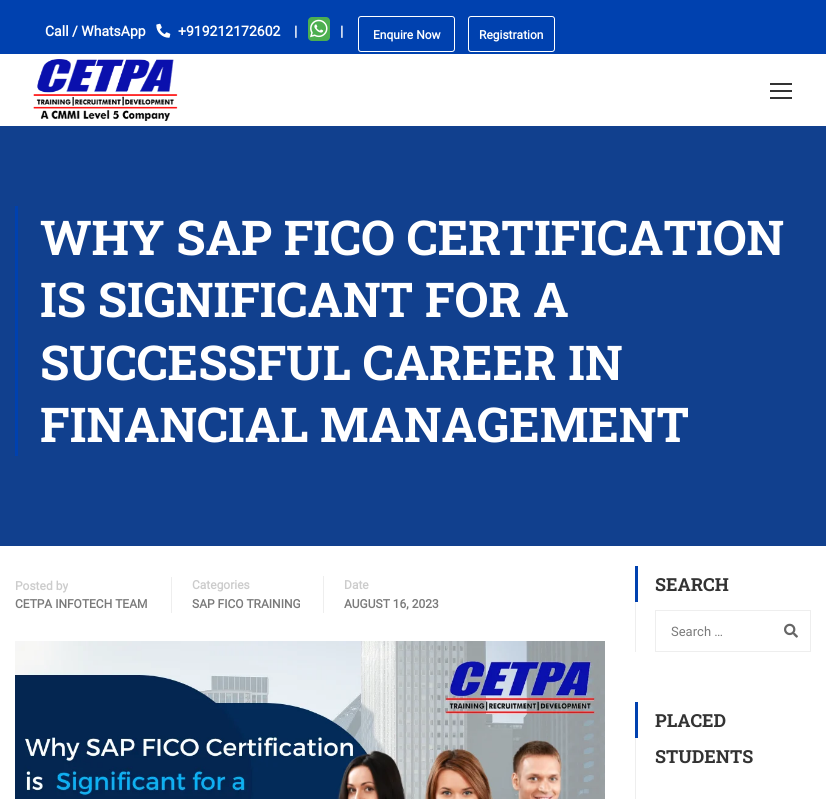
#include <cairo.h>
#include <math.h>
#include <stddef.h>

static cairo_t *c;
static void C(unsigned color){cairo_set_source_rgb(c, (color >> 16) / 255.0, (color >> 8 & 255) / 255.0, (color & 255) / 255.0);}
static void F(const char *family, double size, int italic, int bold){cairo_select_font_face(c, family, italic ? CAIRO_FONT_SLANT_ITALIC : CAIRO_FONT_SLANT_NORMAL,bold ? CAIRO_FONT_WEIGHT_BOLD : CAIRO_FONT_WEIGHT_NORMAL);cairo_set_font_size(c, size);}
static void T(double x, double y, const char *s){cairo_move_to(c, x, y);cairo_show_text(c, s);}
static void R(double x, double y, double w, double h){cairo_rectangle(c, x, y, w, h);cairo_fill(c);}
static void Q(double x, double y, double w, double h, double r){cairo_new_sub_path(c);cairo_arc(c, x + w - r, y + h - r, r, 0, M_PI / 2);cairo_arc(c, x + r, y + h - r, r, M_PI / 2, M_PI);cairo_arc(c, x + r, y + r, r, M_PI, 1.5 * M_PI);cairo_arc(c, x + w - r, y + r, r, 1.5 * M_PI, 2 * M_PI);cairo_close_path(c);}
static void I(const char *path, double x, double y, double w, double h){cairo_surface_t *image = cairo_image_surface_create_from_png(path);cairo_save(c);cairo_set_source_surface(c, image, x, y);cairo_rectangle(c, x, y, w, h);cairo_fill(c);cairo_restore(c);cairo_surface_destroy(image);}
int main(void) {
cairo_surface_t *surface = cairo_image_surface_create(CAIRO_FORMAT_RGB24, 826, 799);
c = cairo_create(surface);
cairo_font_options_t *options = cairo_font_options_create();
cairo_font_options_set_hint_metrics(options, CAIRO_HINT_METRICS_OFF);
cairo_font_options_set_hint_style(options, CAIRO_HINT_STYLE_NONE);
cairo_set_font_options(c, options);
cairo_set_miter_limit(c, 4);
C(0xffffff);
cairo_paint(c);
C(0x0041af);
R(0,0,826,54);
F("Roboto",14,0,1);
C(0xffffff);
T(45,36,"Call / WhatsApp");
I("1.png",156,23,15,15);
T(178,36,"+919212172602");
T(294,36,"|");
C(0x4caf50);
Q(308,17,22,24,4);
cairo_fill(c);
I("2.png",310,19,18,19);
C(0xffffff);
T(340,36,"|");
Q(358.5,16.5,96,35,2.5);
cairo_set_line_width(c,1);
cairo_stroke(c);
F("Roboto",12,0,1);
T(373,39,"Enquire Now");
Q(468.5,16.5,86,35,2.5);
cairo_stroke(c);
T(479,39,"Registration");
I("3.png",33,59,145,62);
C(0x333333);
R(770,83,22,2);
R(770,90,22,2);
R(770,97,22,2);
C(0x11408e);
R(0,126,826,420);
C(0x0041af);
R(15,206,3,250);
F("Roboto Slab",48,0,1);
C(0xffffff);
T(40,255,"WHY SAP FICO CERTIFICATION");
T(40,317,"IS SIGNIFICANT FOR A");
T(40,380,"SUCCESSFUL CAREER IN");
T(40,442,"FINANCIAL MANAGEMENT");
C(0xeeeeee);
R(171,577,1,36);
F("Roboto",12,0,1);
C(0xcccccc);
T(15,590,"Posted by");
C(0x7a7a7a);
T(15,608,"CETPA INFOTECH TEAM");
C(0xeeeeee);
R(323,576,1,37);
C(0xcccccc);
T(192,589,"Categories");
C(0x7a7a7a);
T(192,608,"SAP FICO TRAINING");
C(0xcccccc);
T(344,589,"Date");
C(0x7a7a7a);
T(344,608,"AUGUST 16, 2023");
I("4.png",15,641,590,158);
C(0x0041af);
R(635,566,3,36);
F("Roboto Slab",18,0,1);
C(0x333333);
T(655,591,"SEARCH");
C(0xeeeeee);
R(635,602,1,50);
cairo_rectangle(c,655.5,610.5,155,41);
cairo_stroke(c);
F("Roboto",13,0,0);
C(0x7a7a7a);
T(671,636,"Search …");
I("5.png",784,623,14,15);
C(0x0041af);
R(635,702,3,36);
F("Roboto Slab",18,0,1);
C(0x333333);
T(655,727,"PLACED");
T(655,763,"STUDENTS");
C(0xeeeeee);
R(635,738,1,61);
cairo_surface_write_to_png(surface, "o.png");
cairo_font_options_destroy(options);
cairo_destroy(c);
cairo_surface_destroy(surface);
return 0;
}
